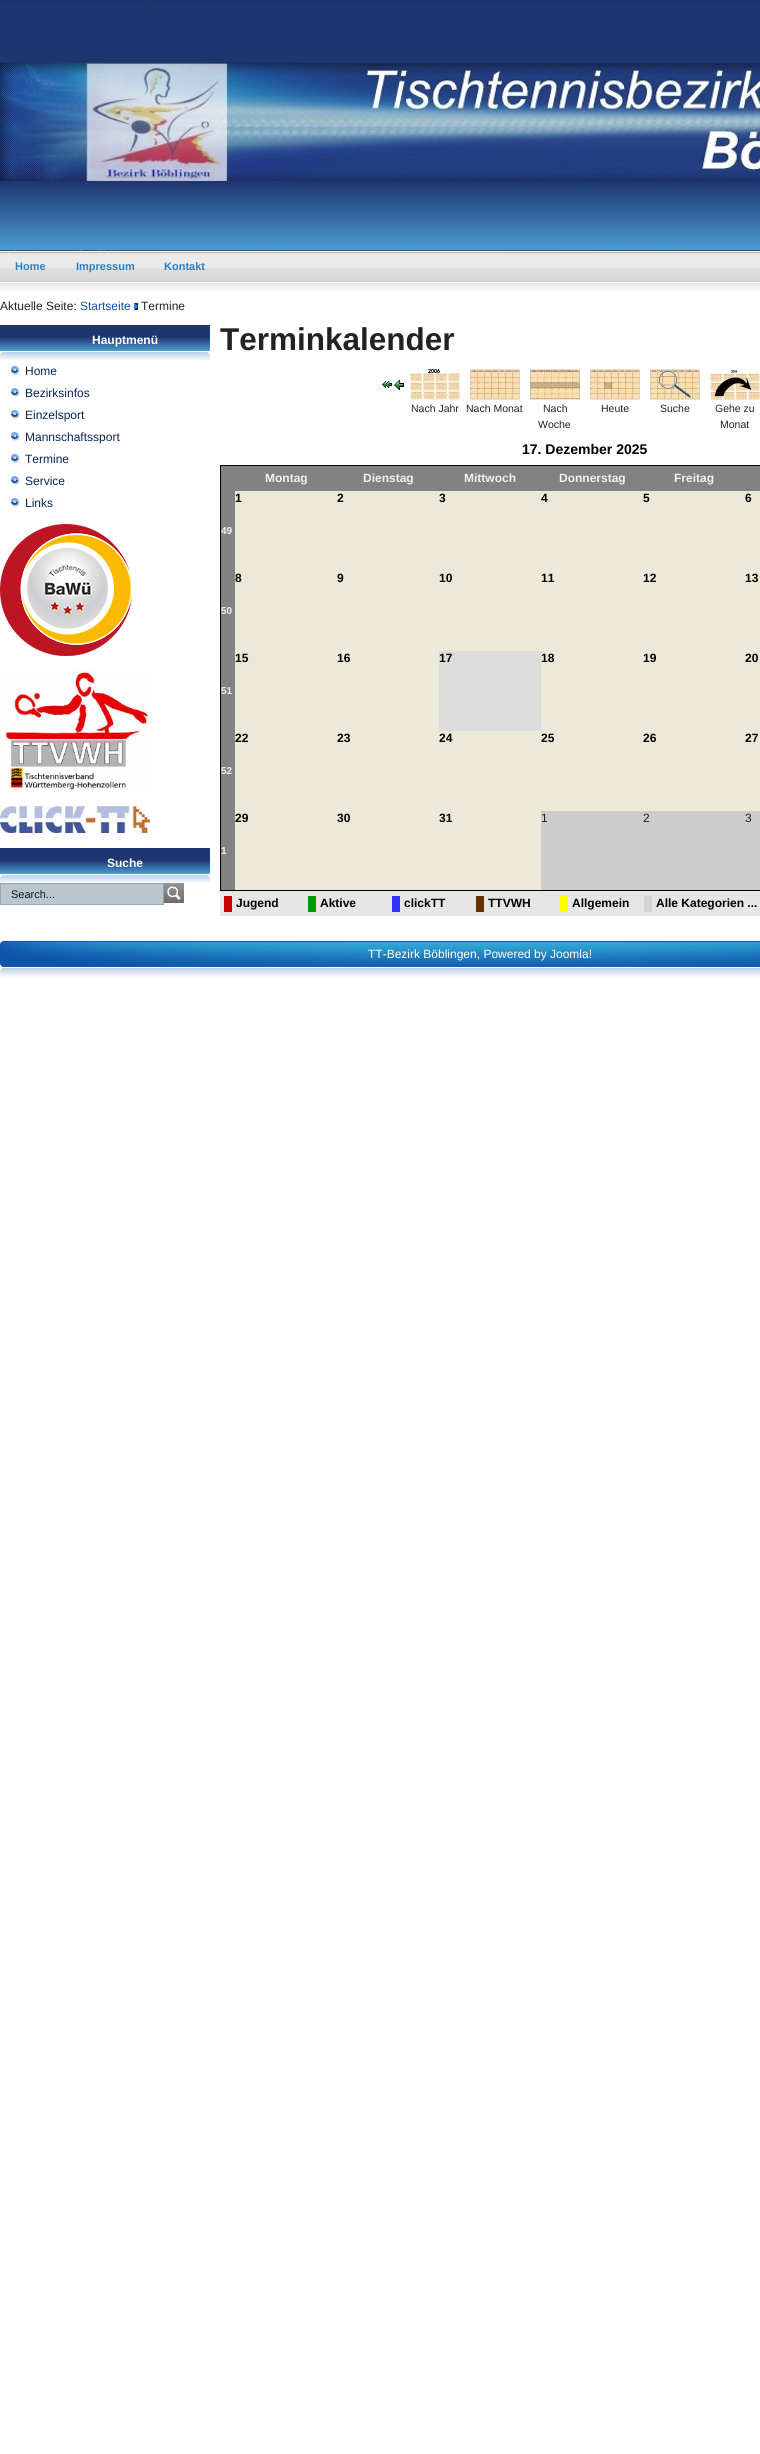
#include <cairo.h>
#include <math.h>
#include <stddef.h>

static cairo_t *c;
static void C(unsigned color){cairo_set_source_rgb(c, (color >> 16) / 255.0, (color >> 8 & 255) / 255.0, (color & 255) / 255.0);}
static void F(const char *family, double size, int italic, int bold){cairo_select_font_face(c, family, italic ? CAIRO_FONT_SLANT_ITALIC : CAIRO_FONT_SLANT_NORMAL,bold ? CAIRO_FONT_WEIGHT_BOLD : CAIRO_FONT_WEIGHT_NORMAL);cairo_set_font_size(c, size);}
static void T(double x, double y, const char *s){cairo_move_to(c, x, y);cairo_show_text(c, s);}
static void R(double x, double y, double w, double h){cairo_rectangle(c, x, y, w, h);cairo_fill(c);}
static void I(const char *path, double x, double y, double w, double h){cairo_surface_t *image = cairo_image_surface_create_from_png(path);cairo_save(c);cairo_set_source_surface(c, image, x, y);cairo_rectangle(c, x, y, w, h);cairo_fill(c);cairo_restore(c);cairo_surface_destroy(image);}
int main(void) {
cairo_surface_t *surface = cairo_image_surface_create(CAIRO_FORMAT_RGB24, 760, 2454);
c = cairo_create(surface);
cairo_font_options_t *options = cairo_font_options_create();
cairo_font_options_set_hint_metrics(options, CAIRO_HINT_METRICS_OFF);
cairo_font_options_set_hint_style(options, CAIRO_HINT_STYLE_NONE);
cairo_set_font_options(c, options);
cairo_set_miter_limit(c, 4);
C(0xffffff);
cairo_paint(c);
I("1.png",0,251,760,41);
I("2.png",0,0,760,251);
F("Liberation Sans",11,0,1);
C(0x2f7fbe);
T(15,270,"Home");
T(76,270,"Impressum");
T(164,270,"Kontakt");
F("Liberation Sans",12,0,0);
C(0x222222);
T(0,310,"Aktuelle Seite:");
C(0x0e54a9);
T(80,310,"Startseite");
I("3.png",134,303,4,7);
C(0x222222);
T(141,310,"Termine");
I("4.png",0,325,210,35);
F("Liberation Sans",12,0,1);
C(0xffffff);
T(92,344,"Hauptmenü");
I("5.png",11,366,9,9);
F("Liberation Sans",12,0,0);
C(0x072556);
T(25,375,"Home");
I("5.png",11,388,9,9);
T(25,397,"Bezirksinfos");
I("5.png",11,410,9,9);
T(25,419,"Einzelsport");
I("5.png",11,432,9,9);
T(25,441,"Mannschaftssport");
I("5.png",11,454,9,9);
T(25,463,"Termine");
I("5.png",11,476,9,9);
T(25,485,"Service");
I("5.png",11,498,9,9);
T(25,507,"Links");
I("6.png",0,524,132,132);
I("7.png",5,670,145,120);
I("8.png",0,806,150,27);
I("4.png",0,848,210,35);
F("Liberation Sans",12,0,1);
C(0xffffff);
T(107,867,"Suche");
C(0xbbc6cc);
cairo_rectangle(c,.5,883.5,163,21);
cairo_fill_preserve(c);
C(0x95a8b3);
cairo_set_line_width(c,1);
cairo_stroke(c);
F("Liberation Sans",11,0,0);
C(0x0b1b24);
T(11,898,"Search...");
I("9.png",164,883,20,20);
F("Liberation Sans",31.5,0,1);
C(0x222222);
T(220,350,"Terminkalender");
I("10.png",382,381,10,7);
I("11.png",394,380,10,10);
I("12.png",410,369,50,31);
I("13.png",470,369,50,31);
I("14.png",530,369,50,31);
I("15.png",590,369,50,31);
I("16.png",650,369,50,31);
I("17.png",710,369,50,31);
F("Liberation Sans",10.5,0,0);
T(411,412,"Nach Jahr");
T(466,412,"Nach Monat");
T(543,412,"Nach");
T(538,428,"Woche");
T(601,412,"Heute");
T(660,412,"Suche");
T(715,412,"Gehe zu");
T(720,428,"Monat");
F("Liberation Sans",14,0,1);
C(0x000000);
T(522,454,"17. Dezember 2025");
R(220,465,540,1);
R(220,890,540,1);
R(220,465,1,426);
C(0x828282);
R(221,466,539,25);
F("Liberation Sans",12,0,1);
C(0xf0f0f0);
T(265,482,"Montag");
T(363,482,"Dienstag");
T(464,482,"Mittwoch");
T(559,482,"Donnerstag");
T(674,482,"Freitag");
C(0xece9d8);
R(235,491,525,80);
C(0x000000);
T(235,502,"1");
T(337,502,"2");
T(439,502,"3");
T(541,502,"4");
T(643,502,"5");
T(745,502,"6");
C(0x828282);
R(221,491,14,399);
F("Liberation Sans",10,0,1);
C(0xf0f0f0);
T(221,534,"49");
C(0xece9d8);
R(235,571,525,80);
F("Liberation Sans",12,0,1);
C(0x000000);
T(235,582,"8");
T(337,582,"9");
T(439,582,"10");
T(541,582,"11");
T(643,582,"12");
T(745,582,"13");
F("Liberation Sans",10,0,1);
C(0xf0f0f0);
T(221,614,"50");
C(0xece9d8);
R(235,651,204,80);
F("Liberation Sans",12,0,1);
C(0x000000);
T(235,662,"15");
T(337,662,"16");
C(0xdcdcdc);
R(439,651,102,80);
C(0x000000);
T(439,662,"17");
C(0xece9d8);
R(541,651,219,80);
C(0x000000);
T(541,662,"18");
T(643,662,"19");
T(745,662,"20");
F("Liberation Sans",10,0,1);
C(0xf0f0f0);
T(221,694,"51");
C(0xece9d8);
R(235,731,525,80);
F("Liberation Sans",12,0,1);
C(0x000000);
T(235,742,"22");
T(337,742,"23");
T(439,742,"24");
T(541,742,"25");
T(643,742,"26");
T(745,742,"27");
F("Liberation Sans",10,0,1);
C(0xf0f0f0);
T(221,774,"52");
C(0xece9d8);
R(235,811,306,79);
F("Liberation Sans",12,0,1);
C(0x000000);
T(235,822,"29");
T(337,822,"30");
T(439,822,"31");
C(0xcccccc);
R(541,811,219,79);
F("Liberation Sans",12,0,0);
C(0x222222);
T(541,822,"1");
T(643,822,"2");
T(745,822,"3");
F("Liberation Sans",10,0,1);
C(0xf0f0f0);
T(221,854,"1");
C(0xe6e6e6);
R(220,891,540,25);
C(0xcc0000);
R(224,896,8,16);
F("Liberation Sans",12,0,1);
C(0x000000);
T(236,907,"Jugend");
C(0x009900);
R(308,896,8,16);
C(0x000000);
T(320,907,"Aktive");
C(0x3333ff);
R(392,896,8,16);
C(0x000000);
T(404,907,"clickTT");
C(0x663300);
R(476,896,8,16);
C(0x000000);
T(488,907,"TTVWH");
C(0xffff00);
R(560,896,8,16);
C(0x000000);
T(572,907,"Allgemein");
C(0xd3d3d3);
R(644,896,8,16);
C(0x000000);
T(656,907,"Alle Kategorien ...");
I("18.png",0,941,760,36);
F("Liberation Sans",12,0,0);
C(0xffffff);
T(368,958,"TT-Bezirk Böblingen, Powered by");
T(550,958,"Joomla!");
cairo_surface_write_to_png(surface, "o.png");
cairo_font_options_destroy(options);
cairo_destroy(c);
cairo_surface_destroy(surface);
return 0;
}
